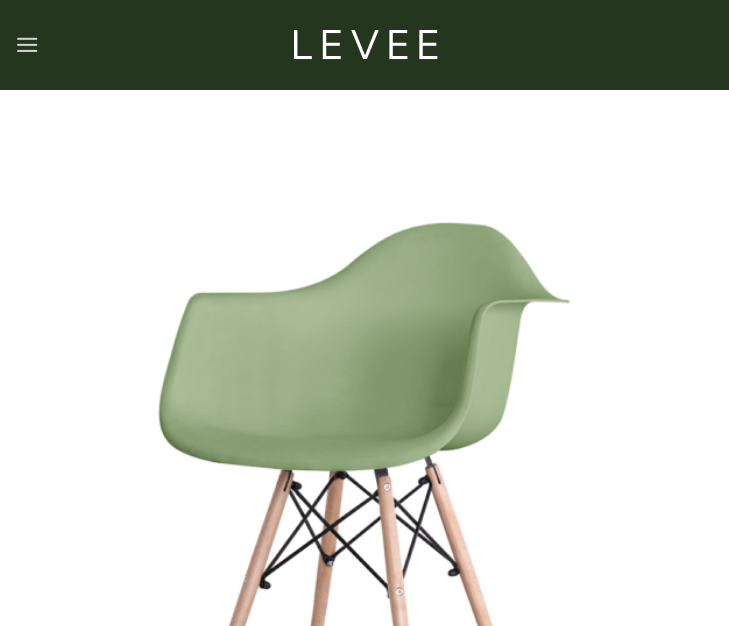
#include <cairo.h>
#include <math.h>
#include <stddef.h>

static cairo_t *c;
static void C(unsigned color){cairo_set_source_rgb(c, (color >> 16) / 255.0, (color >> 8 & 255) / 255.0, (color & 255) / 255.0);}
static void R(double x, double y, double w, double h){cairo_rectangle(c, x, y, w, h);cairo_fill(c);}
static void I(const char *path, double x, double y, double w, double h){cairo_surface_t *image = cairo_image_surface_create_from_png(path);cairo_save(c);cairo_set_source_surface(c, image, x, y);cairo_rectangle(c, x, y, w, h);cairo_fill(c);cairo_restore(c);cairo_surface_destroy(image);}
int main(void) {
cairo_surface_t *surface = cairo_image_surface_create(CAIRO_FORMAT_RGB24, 729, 626);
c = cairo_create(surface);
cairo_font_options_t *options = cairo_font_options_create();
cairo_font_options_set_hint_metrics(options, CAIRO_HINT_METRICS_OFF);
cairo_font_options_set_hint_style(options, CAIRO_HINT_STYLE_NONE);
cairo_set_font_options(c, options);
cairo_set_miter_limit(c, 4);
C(0xffffff);
cairo_paint(c);
C(0x25361e);
R(0,0,729,90);
I("1.png",17,37,21,15);
I("2.png",294,30,144,30);
I("3.png",158,222,412,404);
cairo_surface_write_to_png(surface, "o.png");
cairo_font_options_destroy(options);
cairo_destroy(c);
cairo_surface_destroy(surface);
return 0;
}
